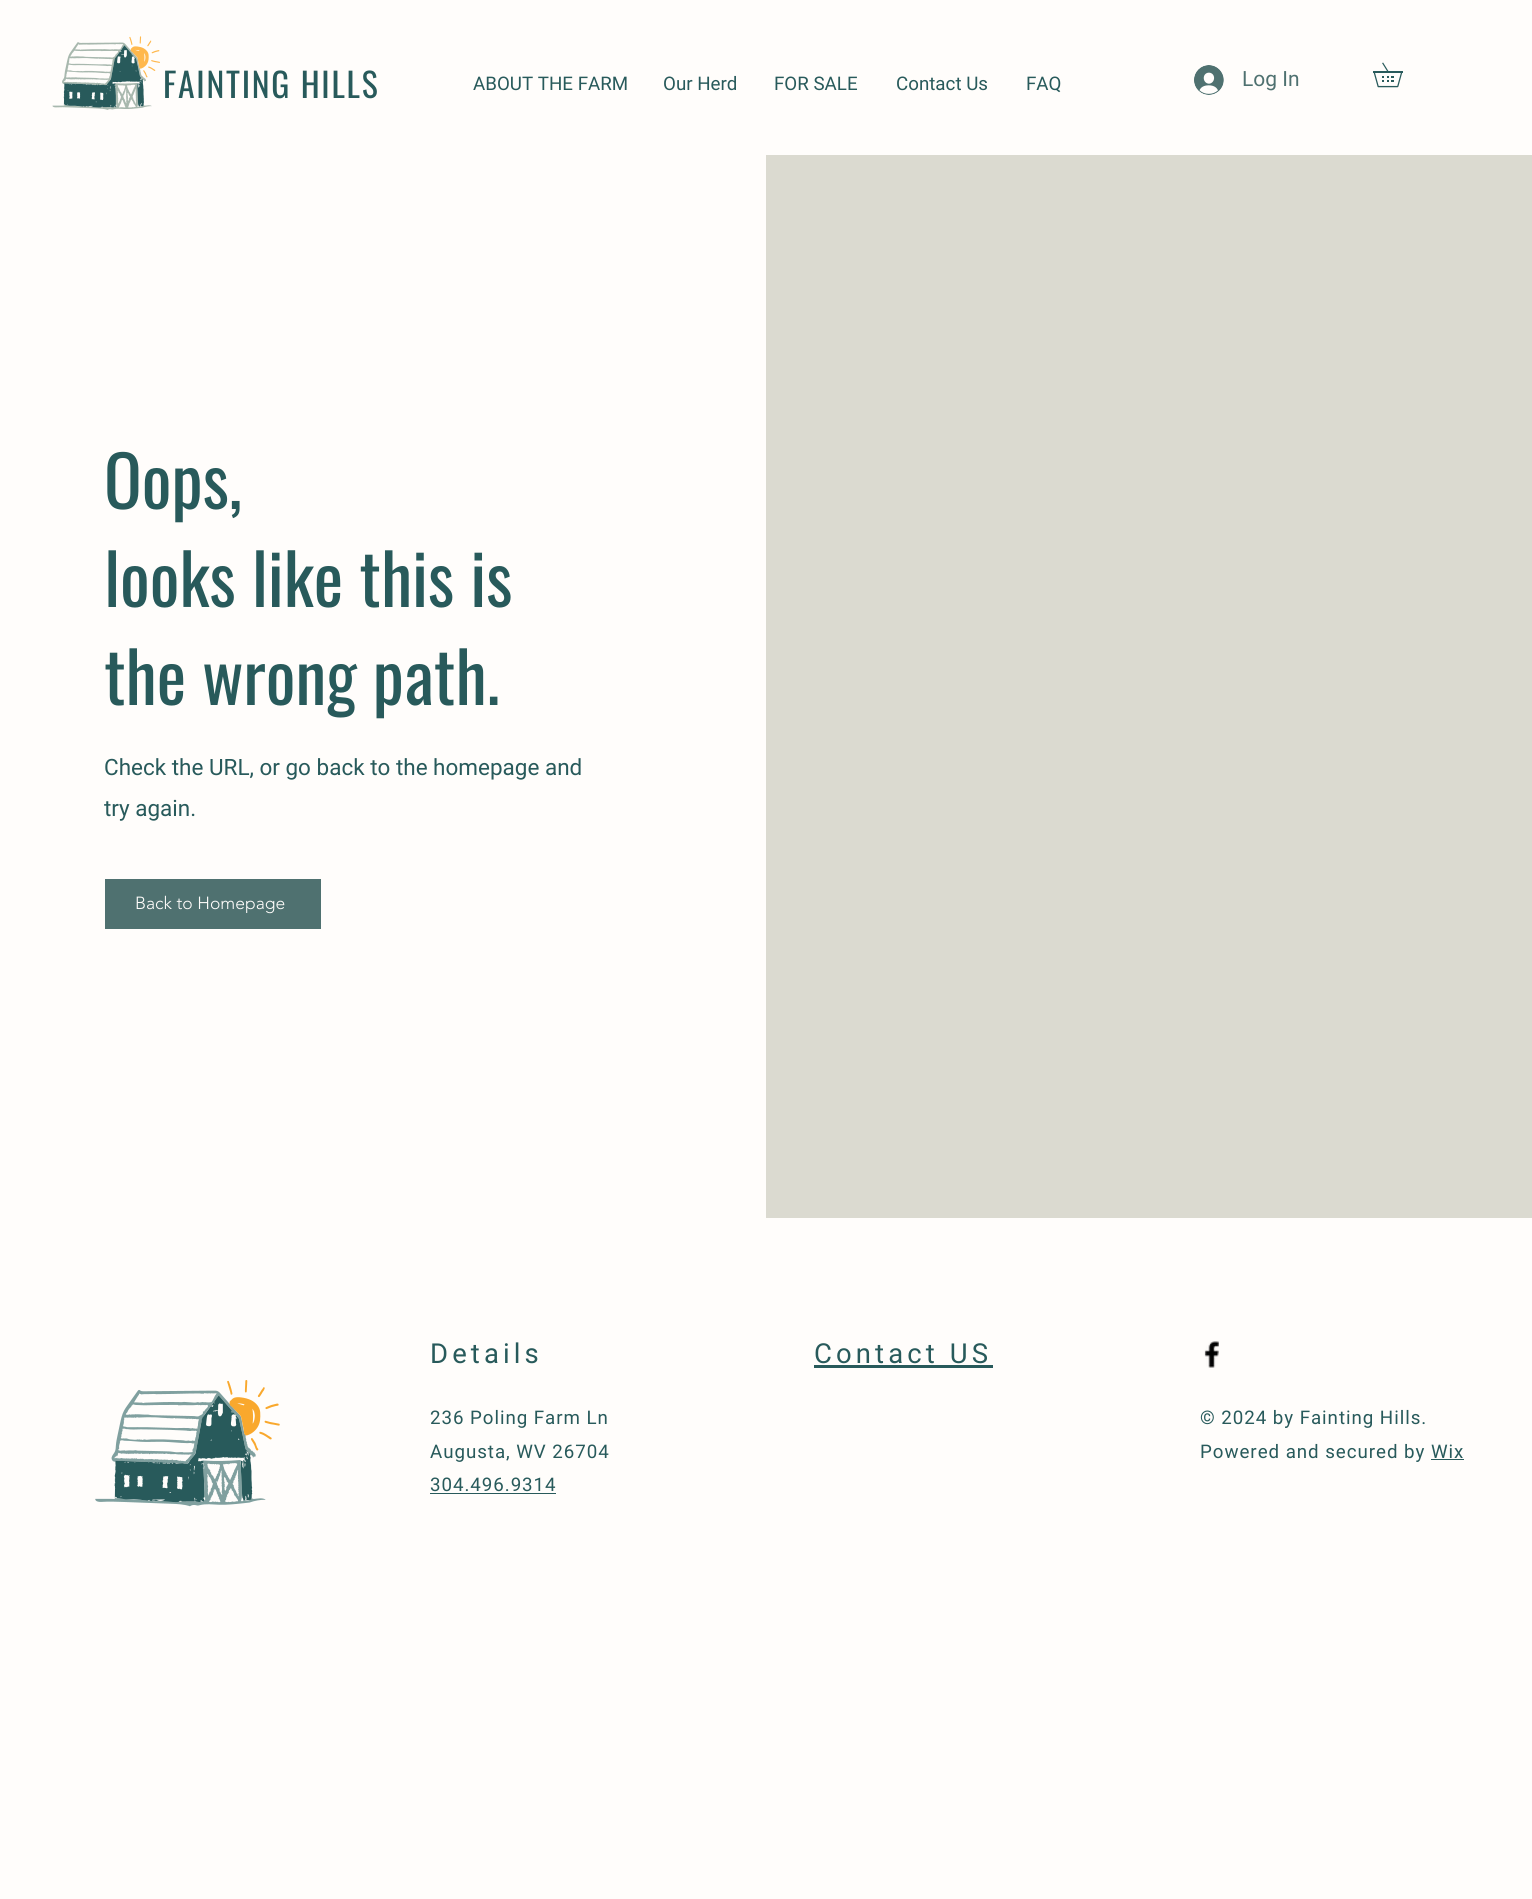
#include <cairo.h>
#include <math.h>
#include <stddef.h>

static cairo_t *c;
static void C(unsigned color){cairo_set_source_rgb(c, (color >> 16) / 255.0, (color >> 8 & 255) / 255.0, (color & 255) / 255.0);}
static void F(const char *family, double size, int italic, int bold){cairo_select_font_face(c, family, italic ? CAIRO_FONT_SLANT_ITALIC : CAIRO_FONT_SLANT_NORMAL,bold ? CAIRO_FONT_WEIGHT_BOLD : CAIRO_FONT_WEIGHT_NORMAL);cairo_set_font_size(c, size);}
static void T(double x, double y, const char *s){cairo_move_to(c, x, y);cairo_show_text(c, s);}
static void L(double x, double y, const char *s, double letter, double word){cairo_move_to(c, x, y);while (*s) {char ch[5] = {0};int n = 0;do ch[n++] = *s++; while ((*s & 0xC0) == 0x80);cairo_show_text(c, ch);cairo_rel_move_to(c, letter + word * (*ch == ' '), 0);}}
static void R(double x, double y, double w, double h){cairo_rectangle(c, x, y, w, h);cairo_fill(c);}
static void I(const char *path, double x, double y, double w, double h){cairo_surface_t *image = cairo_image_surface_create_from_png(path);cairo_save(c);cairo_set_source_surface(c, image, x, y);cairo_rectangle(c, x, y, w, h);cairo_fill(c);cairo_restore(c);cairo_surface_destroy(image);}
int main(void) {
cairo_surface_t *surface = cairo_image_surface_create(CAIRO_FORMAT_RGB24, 1532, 1899);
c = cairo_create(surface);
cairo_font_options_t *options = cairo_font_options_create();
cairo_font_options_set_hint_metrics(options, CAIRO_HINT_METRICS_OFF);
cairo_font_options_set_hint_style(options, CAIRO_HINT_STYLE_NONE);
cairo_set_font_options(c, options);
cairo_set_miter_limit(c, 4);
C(0xfffdfb);
cairo_paint(c);
I("1.png",52,36,108,74);
F("Oswald",33.75,0,0);
C(0x285a5b);
L(163,98,"FAINTING HILLS",1.75,0);
F("Roboto",18.75,0,0);
T(473,90,"ABOUT THE FARM");
T(663,90,"Our Herd");
T(774,90,"FOR SALE");
T(896,90,"Contact Us");
T(1026,90,"FAQ");
I("2.png",1194,65,30,30);
F("Roboto",21,0,0);
C(0x4f7170);
T(1242,86,"Log In");
I("3.png",1373,62,30,26);
F("Oswald",70,0,0);
C(0x285a5b);
T(104,509,"Oops,");
T(104,607,"looks like this is");
T(104,705,"the wrong path.");
F("Roboto",22.5,0,0);
T(104,775,"Check the URL, or go back to the homepage and");
T(104,816,"try again.");
C(0x4f7170);
R(105,879,216,50);
F("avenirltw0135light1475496 Light",17.5,0,0);
C(0xfffdfb);
T(135,909,"Back to Homepage");
C(0xdbdad0);
R(766,155,766,1063);
F("Roboto",27.5,0,0);
C(0x285a5b);
L(430,1363,"Details",4.1,0);
F("Roboto",18.75,0,0);
L(430,1424,"236 Poling Farm Ln",.95,0);
L(430,1458,"Augusta, WV 26704",.95,0);
L(430,1491,"304.496.9314",.95,0);
R(430,1493,126,1);
F("Roboto",27.5,0,0);
L(814,1363,"Contact US",4.1,0);
R(814,1365,179,3);
I("4.png",95,1380,185,127);
I("5.png",1204,1341,15,27);
F("Roboto",18.75,0,0);
L(1200,1424,"© 2024 by Fainting Hills.",.95,0);
L(1200,1458,"Powered and secured by Wix",.95,0);
R(1431,1459,33,1);
cairo_surface_write_to_png(surface, "o.png");
cairo_font_options_destroy(options);
cairo_destroy(c);
cairo_surface_destroy(surface);
return 0;
}
